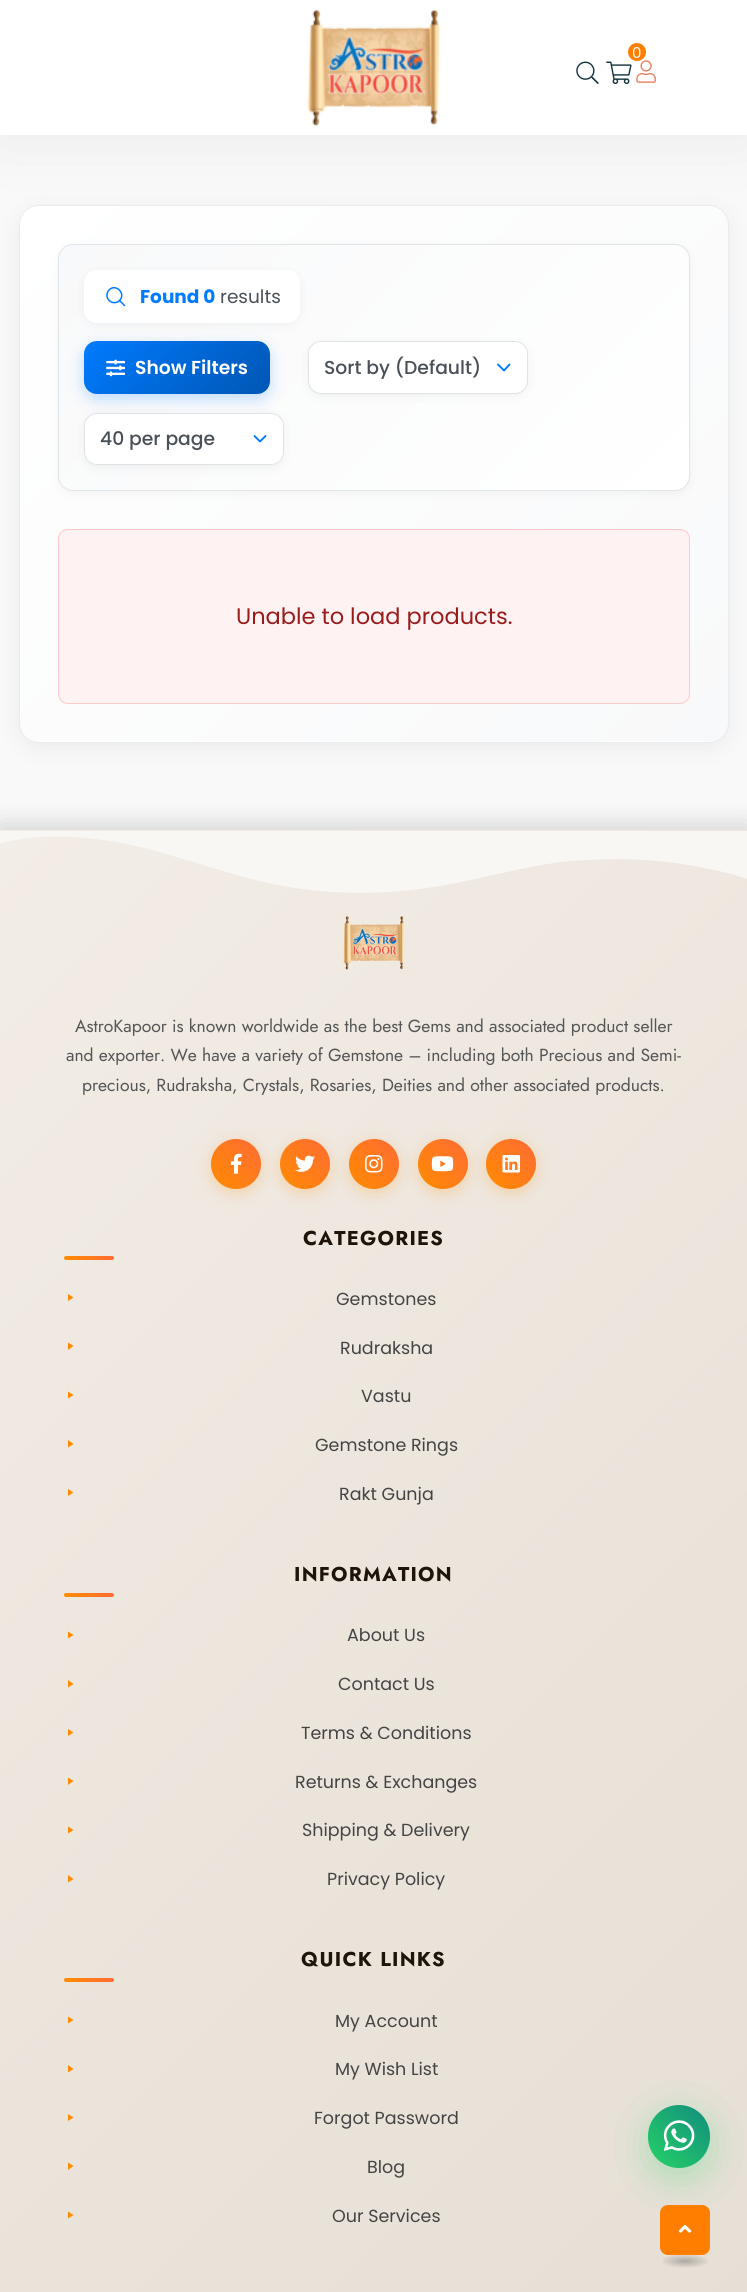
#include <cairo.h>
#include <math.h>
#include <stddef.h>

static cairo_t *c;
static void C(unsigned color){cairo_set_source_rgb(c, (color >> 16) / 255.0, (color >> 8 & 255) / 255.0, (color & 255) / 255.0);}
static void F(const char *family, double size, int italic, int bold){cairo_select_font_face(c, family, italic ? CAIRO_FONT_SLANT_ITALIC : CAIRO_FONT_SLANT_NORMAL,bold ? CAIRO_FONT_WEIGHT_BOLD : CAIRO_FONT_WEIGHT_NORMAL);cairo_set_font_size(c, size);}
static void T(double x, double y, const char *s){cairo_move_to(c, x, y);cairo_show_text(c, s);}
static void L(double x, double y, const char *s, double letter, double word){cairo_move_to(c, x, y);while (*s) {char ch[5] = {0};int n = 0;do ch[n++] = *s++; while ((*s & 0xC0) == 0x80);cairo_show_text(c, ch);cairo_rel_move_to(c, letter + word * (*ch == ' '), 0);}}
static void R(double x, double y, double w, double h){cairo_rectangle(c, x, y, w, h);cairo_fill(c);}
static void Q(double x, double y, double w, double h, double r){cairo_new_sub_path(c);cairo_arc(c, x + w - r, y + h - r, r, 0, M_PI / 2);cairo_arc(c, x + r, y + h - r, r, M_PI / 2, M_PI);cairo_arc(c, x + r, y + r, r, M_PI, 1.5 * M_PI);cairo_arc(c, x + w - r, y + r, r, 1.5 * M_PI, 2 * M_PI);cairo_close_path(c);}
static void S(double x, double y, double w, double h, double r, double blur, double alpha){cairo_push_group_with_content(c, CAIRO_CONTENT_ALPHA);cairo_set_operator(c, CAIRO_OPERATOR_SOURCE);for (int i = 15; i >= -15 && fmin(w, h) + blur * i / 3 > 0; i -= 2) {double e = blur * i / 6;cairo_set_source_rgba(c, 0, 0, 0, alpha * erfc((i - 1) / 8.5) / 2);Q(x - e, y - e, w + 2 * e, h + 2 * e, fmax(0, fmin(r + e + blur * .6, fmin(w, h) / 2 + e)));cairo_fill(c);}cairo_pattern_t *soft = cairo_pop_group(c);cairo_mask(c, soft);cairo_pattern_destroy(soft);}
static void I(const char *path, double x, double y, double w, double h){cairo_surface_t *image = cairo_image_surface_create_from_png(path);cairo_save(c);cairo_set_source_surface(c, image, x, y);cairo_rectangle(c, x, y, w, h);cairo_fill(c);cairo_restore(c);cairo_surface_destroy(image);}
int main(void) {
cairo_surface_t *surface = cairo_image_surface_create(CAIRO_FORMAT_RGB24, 747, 2292);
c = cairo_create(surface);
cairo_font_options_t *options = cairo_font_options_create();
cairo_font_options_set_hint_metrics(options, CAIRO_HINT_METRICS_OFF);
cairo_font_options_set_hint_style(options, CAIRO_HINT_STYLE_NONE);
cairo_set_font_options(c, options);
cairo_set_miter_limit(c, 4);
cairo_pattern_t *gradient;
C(0xf9f9f9);
cairo_paint(c);
C(0x000000);
S(19,210,710,538,20,12.5,.06);
cairo_save(c);
Q(19,205,710,538,20);
cairo_clip(c);
gradient = cairo_pattern_create_linear(63,163,684,784);
cairo_pattern_add_color_stop_rgba(gradient,0,1,1,1,1);
cairo_pattern_add_color_stop_rgba(gradient,1,0.973,0.976,0.98,1);
cairo_set_source(c,gradient);
cairo_pattern_destroy(gradient);
R(20,206,708,535);
gradient = cairo_pattern_create_linear(63,698,684,1319);
cairo_pattern_add_color_stop_rgba(gradient,0,1,1,1,1);
cairo_pattern_add_color_stop_rgba(gradient,1,0.973,0.976,0.98,1);
cairo_set_source(c,gradient);
cairo_pattern_destroy(gradient);
R(30,741,688,2);
cairo_restore(c);
Q(19.5,205.5,709,537,19.5);
C(0xe8ebef);
cairo_set_line_width(c,1);
cairo_stroke(c);
C(0x000000);
S(58,246,632,248,15,6,.04);
cairo_save(c);
Q(58,244,632,247,15);
cairo_clip(c);
gradient = cairo_pattern_create_linear(155,149,593,586);
cairo_pattern_add_color_stop_rgba(gradient,0,0.973,0.976,0.98,1);
cairo_pattern_add_color_stop_rgba(gradient,1,1,1,1,1);
cairo_set_source(c,gradient);
cairo_pattern_destroy(gradient);
R(59,245,630,245);
cairo_restore(c);
Q(58.5,244.5,631,246,14.5);
C(0xe0e5ea);
cairo_stroke(c);
C(0x000000);
S(0,0,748,135,0,37.5,.07);
C(0xffffff);
R(0,0,747,135);
I("1.png",307,9,134,118);
I("4.png",636,60,20,23);
C(0xff7e00);
cairo_arc(c,637,52,9,0,2 * M_PI);
cairo_fill(c);
F("Poppins",15,0,0);
C(0xffffff);
T(632,58,"0");
I("2.png",606,61,26,23);
I("3.png",576,61,23,23);
C(0x000000);
S(84,273,216,52,13,5,.05);
C(0xffffff);
Q(84,270,216,53,13);
cairo_fill(c);
cairo_new_path(c);
cairo_move_to(c,124.5,305.5);
cairo_line_to(c,119.5,300.5);
cairo_move_to(c,119.5,300.5);
cairo_curve_to(c,126.5,293.5,115.5,283,109,290);
cairo_curve_to(c,102.5,297.5,112.5,307,119.5,300.5);
cairo_close_path(c);
C(0x007bff);
cairo_set_line_width(c,1.5);
cairo_set_line_cap(c,CAIRO_LINE_CAP_ROUND);
cairo_set_line_join(c,CAIRO_LINE_JOIN_ROUND);
cairo_stroke(c);
F("Poppins",18.5,0,1);
T(140,303,"Found 0");
F("Poppins",18.5,0,0);
C(0x495057);
T(220,303,"results");
C(0x000000);
S(84,415,200,53,13,5,.05);
C(0xffffff);
Q(84,413,200,52,13);
cairo_fill(c);
cairo_new_path(c);
cairo_move_to(c,254.5,436);
cairo_line_to(c,260,441.5);
cairo_line_to(c,265.5,436);
C(0x007bff);
cairo_set_line_width(c,1.9);
cairo_stroke(c);
Q(84.5,413.5,199,51,12.5);
C(0xdfe3e8);
cairo_set_line_width(c,1);
cairo_set_line_cap(c,CAIRO_LINE_CAP_BUTT);
cairo_set_line_join(c,CAIRO_LINE_JOIN_MITER);
cairo_stroke(c);
C(0x007bff);
S(84,346,186,53,13,7.5,.25);
gradient = cairo_pattern_create_linear(117,308,237,427);
cairo_pattern_add_color_stop_rgba(gradient,0,0,0.482,1,1);
cairo_pattern_add_color_stop_rgba(gradient,1,0,0.337,0.702,1);
cairo_set_source(c,gradient);
cairo_pattern_destroy(gradient);
Q(84,341,186,53,13);
cairo_fill(c);
I("5.png",106,359,19,18);
F("Poppins SemiBold",18.75,0,0);
C(0xffffff);
T(135,374,"Show Filters");
C(0x000000);
S(308,344,220,52,13,5,.05);
C(0xffffff);
Q(308,341,220,53,13);
cairo_fill(c);
cairo_new_path(c);
cairo_move_to(c,498,364.5);
cairo_line_to(c,504,370.5);
cairo_line_to(c,509.5,364.5);
C(0x007bff);
cairo_set_line_width(c,1.9);
cairo_set_line_cap(c,CAIRO_LINE_CAP_ROUND);
cairo_set_line_join(c,CAIRO_LINE_JOIN_ROUND);
cairo_stroke(c);
Q(308.5,341.5,219,52,12.5);
C(0xdfe3e8);
cairo_set_line_width(c,1);
cairo_set_line_cap(c,CAIRO_LINE_CAP_BUTT);
cairo_set_line_join(c,CAIRO_LINE_JOIN_MITER);
cairo_stroke(c);
F("Poppins Medium",18.75,0,0);
C(0x495057);
T(324,374,"Sort by (Default)");
T(100,445,"40 per page");
C(0xfef2f2);
Q(58.5,529.5,631,174,9.5);
cairo_fill_preserve(c);
C(0xfecaca);
cairo_stroke(c);
F("Poppins",22.5,0,0);
C(0x991b1b);
T(236,624,"Unable to load products.");
C(0x000000);
S(0,824,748,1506,0,12.5,.15);
gradient = cairo_pattern_create_linear(-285,1115,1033,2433);
cairo_pattern_add_color_stop_rgba(gradient,0,0.949,0.929,0.902,1);
cairo_pattern_add_color_stop_rgba(gradient,.5,0.922,0.894,0.859,1);
cairo_pattern_add_color_stop_rgba(gradient,1,0.894,0.867,0.831,1);
cairo_set_source(c,gradient);
cairo_pattern_destroy(gradient);
R(0,830,747,1462);
C(0xf9f7f4);
cairo_new_path(c);
cairo_move_to(c,132,845);
cairo_curve_to(c,181,856,233,877,283,886);
cairo_curve_to(c,334,895,388,895,439,886);
cairo_curve_to(c,476,880,511,870,547,864);
cairo_curve_to(c,614,854,684,859,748,879);
cairo_line_to(c,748,831);
cairo_line_to(c,-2,831);
cairo_line_to(c,-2,844);
cairo_curve_to(c,41,832,88,836,132,845);
cairo_close_path(c);
cairo_fill(c);
I("6.png",343,916,62,54);
F("Jost",17.5,0,0);
C(0x555555);
T(75,1032,"AstroKapoor is known worldwide as the best Gems and associated product seller");
T(66,1061,"and exporter. We have a variety of Gemstone – including both Precious and Semi-");
T(82,1091,"precious, Rudraksha, Crystals, Rosaries, Deities and other associated products.");
C(0xff8c00);
S(211,1143,50,50,25,7.5,.25);
gradient = cairo_pattern_create_linear(211,1189,261,1139);
cairo_pattern_add_color_stop_rgba(gradient,0,1,0.549,0,1);
cairo_pattern_add_color_stop_rgba(gradient,1,1,0.42,0.208,1);
cairo_set_source(c,gradient);
cairo_pattern_destroy(gradient);
cairo_arc(c,236,1164,25,0,2 * M_PI);
cairo_fill(c);
I("7.png",230,1153,12,21);
C(0xff8c00);
S(280,1143,50,50,25,7.5,.25);
gradient = cairo_pattern_create_linear(280,1189,330,1139);
cairo_pattern_add_color_stop_rgba(gradient,0,1,0.549,0,1);
cairo_pattern_add_color_stop_rgba(gradient,1,1,0.42,0.208,1);
cairo_set_source(c,gradient);
cairo_pattern_destroy(gradient);
cairo_arc(c,305,1164,25,0,2 * M_PI);
cairo_fill(c);
I("8.png",295,1155,20,17);
C(0xff8c00);
S(349,1143,50,50,25,7.5,.25);
gradient = cairo_pattern_create_linear(349,1189,399,1139);
cairo_pattern_add_color_stop_rgba(gradient,0,1,0.549,0,1);
cairo_pattern_add_color_stop_rgba(gradient,1,1,0.42,0.208,1);
cairo_set_source(c,gradient);
cairo_pattern_destroy(gradient);
cairo_arc(c,374,1164,25,0,2 * M_PI);
cairo_fill(c);
I("9.png",365,1155,18,18);
C(0xff8c00);
S(418,1143,50,50,25,7.5,.25);
gradient = cairo_pattern_create_linear(418,1189,468,1139);
cairo_pattern_add_color_stop_rgba(gradient,0,1,0.549,0,1);
cairo_pattern_add_color_stop_rgba(gradient,1,1,0.42,0.208,1);
cairo_set_source(c,gradient);
cairo_pattern_destroy(gradient);
cairo_arc(c,443,1164,25,0,2 * M_PI);
cairo_fill(c);
I("10.png",431,1156,23,16);
C(0xff8c00);
S(486,1143,50,50,25,7.5,.25);
gradient = cairo_pattern_create_linear(486,1189,536,1139);
cairo_pattern_add_color_stop_rgba(gradient,0,1,0.549,0,1);
cairo_pattern_add_color_stop_rgba(gradient,1,1,0.42,0.208,1);
cairo_set_source(c,gradient);
cairo_pattern_destroy(gradient);
cairo_arc(c,511,1164,25,0,2 * M_PI);
cairo_fill(c);
I("11.png",502,1155,18,18);
F("Jost",20,0,1);
C(0x1f1409);
L(303,1245,"CATEGORIES",1.25,0);
gradient = cairo_pattern_create_linear(64,1258,114,1258);
cairo_pattern_add_color_stop_rgba(gradient,0,1,0.549,0,1);
cairo_pattern_add_color_stop_rgba(gradient,1,1,0.42,0.208,1);
cairo_set_source(c,gradient);
cairo_pattern_destroy(gradient);
Q(64,1256,50,4,2);
cairo_fill(c);
C(0xff8c00);
cairo_new_path(c);
cairo_move_to(c,68,1294);
cairo_line_to(c,68,1301);
cairo_line_to(c,73.5,1297.5);
cairo_close_path(c);
cairo_fill(c);
F("Poppins",17.5,0,0);
C(0x444444);
T(336,1305,"Gemstones");
C(0xff8c00);
cairo_new_path(c);
cairo_move_to(c,68,1342.5);
cairo_line_to(c,68,1350);
cairo_line_to(c,73.5,1346);
cairo_close_path(c);
cairo_fill(c);
C(0x444444);
T(340,1354,"Rudraksha");
C(0xff8c00);
cairo_new_path(c);
cairo_move_to(c,68,1391.5);
cairo_line_to(c,68,1398.5);
cairo_line_to(c,73.5,1395);
cairo_close_path(c);
cairo_fill(c);
C(0x444444);
T(361,1402,"Vastu");
C(0xff8c00);
cairo_new_path(c);
cairo_move_to(c,68,1440);
cairo_line_to(c,68,1447.5);
cairo_line_to(c,73.5,1444);
cairo_close_path(c);
cairo_fill(c);
C(0x444444);
T(315,1451,"Gemstone Rings");
C(0xff8c00);
cairo_new_path(c);
cairo_move_to(c,68,1489);
cairo_line_to(c,68,1496);
cairo_line_to(c,73.5,1492.5);
cairo_close_path(c);
cairo_fill(c);
C(0x444444);
T(339,1500,"Rakt Gunja");
F("Jost",20,0,1);
C(0x1f1409);
L(294,1581,"INFORMATION",1.25,0);
gradient = cairo_pattern_create_linear(64,1594,114,1594);
cairo_pattern_add_color_stop_rgba(gradient,0,1,0.549,0,1);
cairo_pattern_add_color_stop_rgba(gradient,1,1,0.42,0.208,1);
cairo_set_source(c,gradient);
cairo_pattern_destroy(gradient);
Q(64,1593,50,4,2);
cairo_fill(c);
C(0xff8c00);
cairo_new_path(c);
cairo_move_to(c,68,1631.5);
cairo_line_to(c,68,1638.5);
cairo_line_to(c,73.5,1635);
cairo_close_path(c);
cairo_fill(c);
F("Poppins",17.5,0,0);
C(0x444444);
T(347,1641,"About Us");
C(0xff8c00);
cairo_new_path(c);
cairo_move_to(c,68,1680);
cairo_line_to(c,68,1687.5);
cairo_line_to(c,73.5,1684);
cairo_close_path(c);
cairo_fill(c);
C(0x444444);
T(338,1690,"Contact Us");
C(0xff8c00);
cairo_new_path(c);
cairo_move_to(c,68,1729);
cairo_line_to(c,68,1736);
cairo_line_to(c,73.5,1732.5);
cairo_close_path(c);
cairo_fill(c);
C(0x444444);
T(301,1739,"Terms & Conditions");
C(0xff8c00);
cairo_new_path(c);
cairo_move_to(c,68,1777.5);
cairo_line_to(c,68,1785);
cairo_line_to(c,73.5,1781);
cairo_close_path(c);
cairo_fill(c);
C(0x444444);
T(295,1788,"Returns & Exchanges");
C(0xff8c00);
cairo_new_path(c);
cairo_move_to(c,68,1826.5);
cairo_line_to(c,68,1833.5);
cairo_line_to(c,73.5,1830);
cairo_close_path(c);
cairo_fill(c);
C(0x444444);
T(302,1836,"Shipping & Delivery");
C(0xff8c00);
cairo_new_path(c);
cairo_move_to(c,68,1875);
cairo_line_to(c,68,1882.5);
cairo_line_to(c,73.5,1879);
cairo_close_path(c);
cairo_fill(c);
C(0x444444);
T(327,1885,"Privacy Policy");
F("Jost",20,0,1);
C(0x1f1409);
L(301,1966,"QUICK LINKS",1.25,0);
gradient = cairo_pattern_create_linear(64,1979,114,1979);
cairo_pattern_add_color_stop_rgba(gradient,0,1,0.549,0,1);
cairo_pattern_add_color_stop_rgba(gradient,1,1,0.42,0.208,1);
cairo_set_source(c,gradient);
cairo_pattern_destroy(gradient);
Q(64,1978,50,4,2);
cairo_fill(c);
C(0xff8c00);
cairo_new_path(c);
cairo_move_to(c,68,2016.5);
cairo_line_to(c,68,2023.5);
cairo_line_to(c,73.5,2020);
cairo_close_path(c);
cairo_fill(c);
F("Poppins",17.5,0,0);
C(0x444444);
T(335,2027,"My Account");
C(0xff8c00);
cairo_new_path(c);
cairo_move_to(c,68,2065);
cairo_line_to(c,68,2072.5);
cairo_line_to(c,73.5,2069);
cairo_close_path(c);
cairo_fill(c);
C(0x444444);
T(335,2075,"My Wish List");
C(0xff8c00);
cairo_new_path(c);
cairo_move_to(c,68,2114);
cairo_line_to(c,68,2121);
cairo_line_to(c,73.5,2117.5);
cairo_close_path(c);
cairo_fill(c);
C(0x444444);
T(314,2124,"Forgot Password");
C(0xff8c00);
cairo_new_path(c);
cairo_move_to(c,68,2162.5);
cairo_line_to(c,68,2170);
cairo_line_to(c,73.5,2166);
cairo_close_path(c);
cairo_fill(c);
C(0x444444);
T(367,2173,"Blog");
C(0xff8c00);
cairo_new_path(c);
cairo_move_to(c,68,2211.5);
cairo_line_to(c,68,2218.5);
cairo_line_to(c,73.5,2215);
cairo_close_path(c);
cairo_fill(c);
C(0x444444);
T(332,2222,"Our Services");
C(0x25d366);
S(648,2115,62,63,31,19,.3);
gradient = cairo_pattern_create_linear(648,2168,710,2105);
cairo_pattern_add_color_stop_rgba(gradient,0,0.145,0.827,0.4,1);
cairo_pattern_add_color_stop_rgba(gradient,1,0.071,0.549,0.494,1);
cairo_set_source(c,gradient);
cairo_pattern_destroy(gradient);
Q(648,2105,62,63,31);
cairo_fill(c);
I("12.png",663,2120,32,31);
C(0xff7e00);
Q(660,2205,50,50,8);
cairo_fill(c);
I("13.png",678,2224,14,9);
gradient = cairo_pattern_create_radial(0,0,0,0,0,1);
cairo_pattern_set_matrix(gradient, &(cairo_matrix_t){1.0 / 32, 0, 0, 1.0 / 9, -1.0 * 685 / 32, -1.0 * 2261 / 9});
cairo_pattern_add_color_stop_rgba(gradient,0,0.678,0.659,0.631,1);
cairo_pattern_add_color_stop_rgba(gradient,.8,0.906,0.878,0.843,1);
cairo_set_source(c,gradient);
cairo_pattern_destroy(gradient);
R(663,2255,45,13);
cairo_surface_write_to_png(surface, "o.png");
cairo_font_options_destroy(options);
cairo_destroy(c);
cairo_surface_destroy(surface);
return 0;
}
